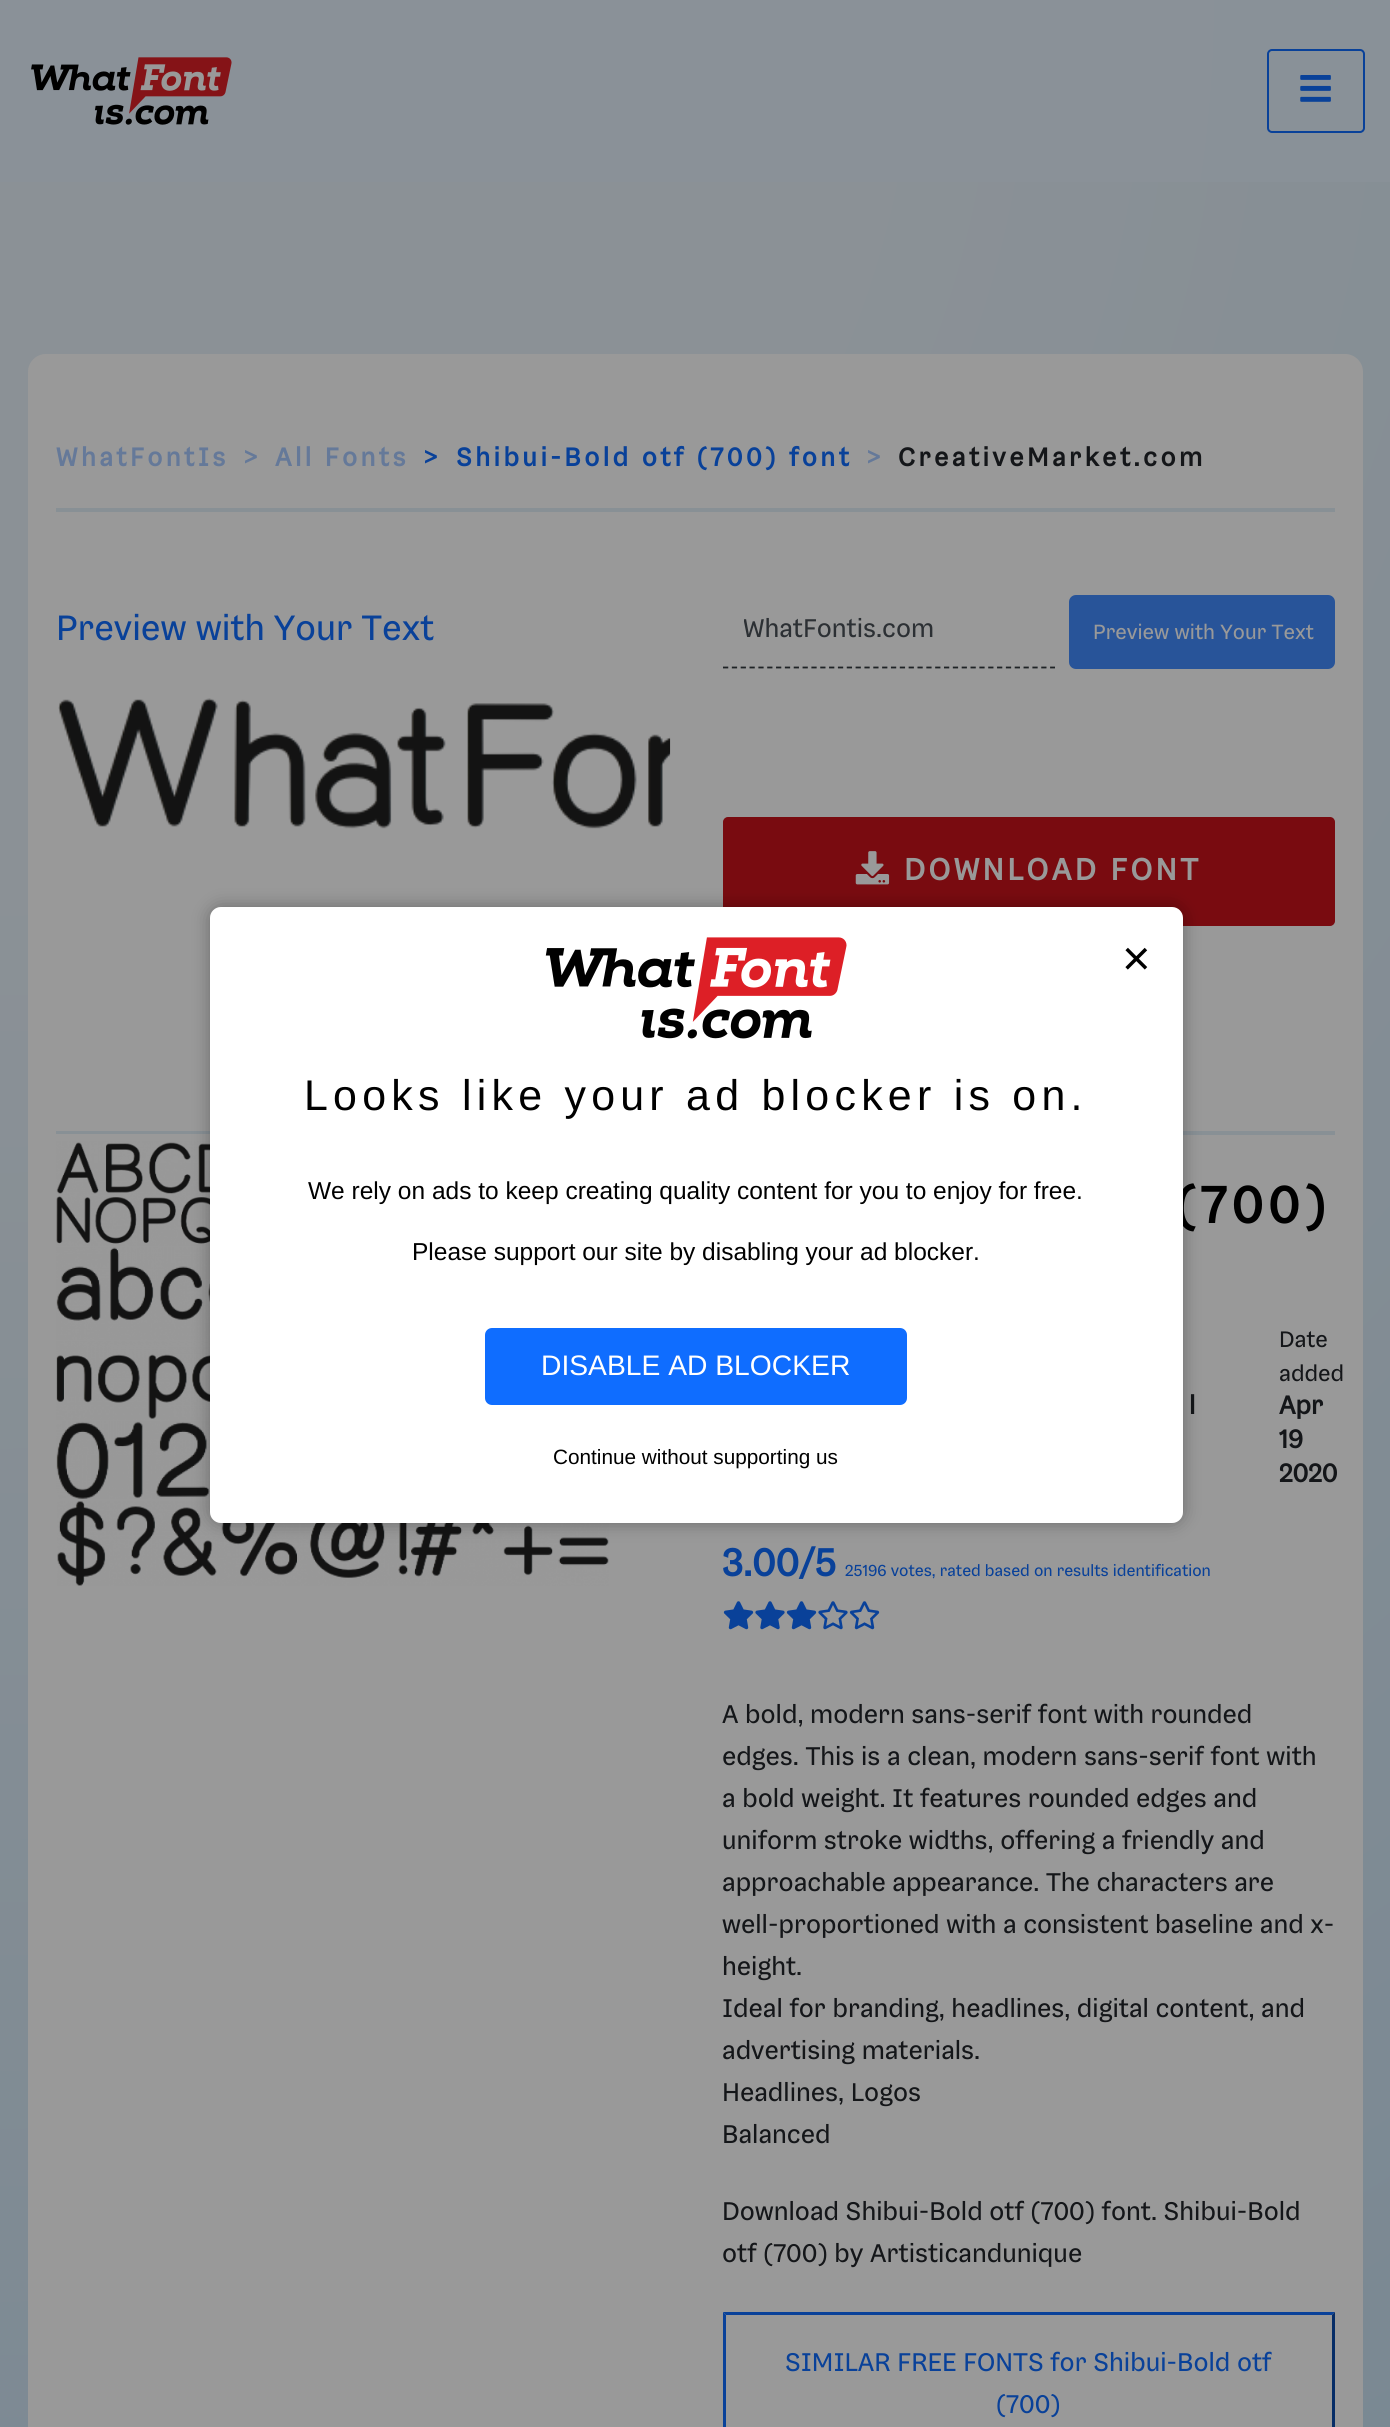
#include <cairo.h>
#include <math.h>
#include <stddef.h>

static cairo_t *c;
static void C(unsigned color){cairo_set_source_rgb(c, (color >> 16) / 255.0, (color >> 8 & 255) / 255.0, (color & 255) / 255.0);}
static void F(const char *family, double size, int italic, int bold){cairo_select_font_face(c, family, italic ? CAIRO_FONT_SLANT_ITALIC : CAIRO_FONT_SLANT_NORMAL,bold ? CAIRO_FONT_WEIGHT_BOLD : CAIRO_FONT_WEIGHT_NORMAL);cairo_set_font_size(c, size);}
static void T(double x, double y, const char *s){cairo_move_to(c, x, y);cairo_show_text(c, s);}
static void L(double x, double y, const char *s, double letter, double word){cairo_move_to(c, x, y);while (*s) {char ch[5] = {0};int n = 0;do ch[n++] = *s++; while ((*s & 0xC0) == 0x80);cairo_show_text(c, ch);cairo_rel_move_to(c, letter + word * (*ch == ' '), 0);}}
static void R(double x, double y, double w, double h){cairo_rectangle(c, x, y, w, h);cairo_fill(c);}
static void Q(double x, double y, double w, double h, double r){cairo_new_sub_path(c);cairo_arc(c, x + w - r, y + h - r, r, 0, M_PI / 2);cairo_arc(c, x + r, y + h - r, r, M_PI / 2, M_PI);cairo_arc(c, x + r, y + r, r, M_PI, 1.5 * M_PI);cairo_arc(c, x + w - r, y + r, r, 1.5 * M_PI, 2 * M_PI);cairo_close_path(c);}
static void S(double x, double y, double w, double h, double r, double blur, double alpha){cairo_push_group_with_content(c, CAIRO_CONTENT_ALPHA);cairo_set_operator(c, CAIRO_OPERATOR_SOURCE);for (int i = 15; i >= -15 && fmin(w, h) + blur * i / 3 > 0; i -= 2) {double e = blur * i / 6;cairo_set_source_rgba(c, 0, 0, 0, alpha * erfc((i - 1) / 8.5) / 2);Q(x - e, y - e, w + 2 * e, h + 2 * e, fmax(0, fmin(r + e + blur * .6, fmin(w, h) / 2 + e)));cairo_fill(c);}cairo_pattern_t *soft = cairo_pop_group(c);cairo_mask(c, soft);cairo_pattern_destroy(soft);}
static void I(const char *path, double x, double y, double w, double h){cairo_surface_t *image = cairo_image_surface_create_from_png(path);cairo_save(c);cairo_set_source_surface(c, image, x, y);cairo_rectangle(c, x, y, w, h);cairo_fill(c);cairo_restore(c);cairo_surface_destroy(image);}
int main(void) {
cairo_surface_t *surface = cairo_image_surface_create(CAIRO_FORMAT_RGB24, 1390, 2427);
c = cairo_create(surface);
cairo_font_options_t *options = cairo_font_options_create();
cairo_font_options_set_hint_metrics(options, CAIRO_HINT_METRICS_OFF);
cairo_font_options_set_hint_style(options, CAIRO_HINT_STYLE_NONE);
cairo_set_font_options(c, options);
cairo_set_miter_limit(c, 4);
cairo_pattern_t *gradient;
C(0xffffff);
cairo_paint(c);
gradient = cairo_pattern_create_radial(0,0,0,0,0,8606);
cairo_pattern_add_color_stop_rgba(gradient,.1,0.545,0.569,0.588,1);
cairo_pattern_add_color_stop_rgba(gradient,1,0.282,0.435,0.545,1);
cairo_set_source(c,gradient);
cairo_pattern_destroy(gradient);
R(0,182,1390,2245);
gradient = cairo_pattern_create_radial(0,0,0,0,0,8606);
cairo_pattern_add_color_stop_rgba(gradient,.1,0.541,0.569,0.596,1);
cairo_pattern_add_color_stop_rgba(gradient,1,0.502,0.549,0.592,1);
cairo_set_source(c,gradient);
cairo_pattern_destroy(gradient);
R(0,0,1390,182);
I("1.png",31,57,201,68);
Q(1268,50,96,82,4);
C(0x094199);
cairo_stroke(c);
I("2.png",1300,75,31,27);
C(0x999999);
Q(28,354,1335,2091,18);
cairo_fill(c);
F("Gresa",28,0,1);
C(0x657999);
L(56,466,"WhatFontIs",3.5,0);
L(243,466,">",3.5,0);
L(275,466,"All Fonts",3.5,0);
C(0x094199);
L(423,466,">",3.5,0);
L(456,466,"Shibui-Bold otf (700) font",3.5,0);
C(0x657999);
L(866,466,">",3.5,0);
C(0x141619);
L(898,466,"CreativeMarket.com",3.5,0);
C(0x889095);
R(56,508,1279,4);
R(56,1131,1279,4);
F("Gresa",38.5,0,0);
C(0x094199);
T(56,640,"Preview with Your Text");
cairo_new_path(c);
cairo_move_to(c,723,667.5);
cairo_line_to(c,1055,667.5);
C(0x1f2326);
cairo_set_line_width(c,1.8);
cairo_set_dash(c,(double[]){5.25,3.59},2,0);
cairo_stroke(c);
cairo_save(c);
cairo_rectangle(c,744,614,290,34);
cairo_clip(c);
F("Gresa",28,0,0);
C(0x2c3034);
T(743,637,"WhatFontis.com");
cairo_restore(c);
C(0x285499);
Q(1069,595,266,74,7);
cairo_fill(c);
F("Gresa",22.5,0,0);
C(0x999999);
T(1093,639,"Preview with Your Text");
I("3.png",58,698,613,131);
C(0x790b10);
Q(724,818,610,107,4);
cairo_fill_preserve(c);
cairo_set_line_width(c,2);
cairo_set_dash(c,NULL,0,0);
cairo_stroke(c);
I("4.png",855,851,35,34);
F("Gresa",33.25,0,1);
C(0x999999);
L(904,880,"DOWNLOAD FONT",3.5,0);
R(56,1134,641,1);
I("5.png",56,1141,154,54);
I("6.png",56,1195,154,51);
I("7.png",56,1247,154,93);
I("8.png",56,1341,154,79);
I("9.png",56,1421,154,78);
I("10.png",57,1501,552,85);
F("Gresa",56,0,1);
C(0x000000);
L(1175,1223,"(700)",5.25,0);
F("Gresa",28,0,1);
C(0x141619);
T(1189,1414,"l");
F("Gresa",24.5,0,0);
T(1279,1347,"Date");
T(1279,1381,"added");
F("Gresa",28,0,1);
T(1279,1414,"Apr");
T(1279,1448,"19");
T(1279,1482,"2020");
F("Gresa",42,0,1);
C(0x094199);
T(722,1576,"3.00/5");
F("Gresa",17.5,0,0);
T(845,1576,"25196 votes, rated based on results identification");
I("11.png",723,1601,31,29);
I("12.png",755,1601,30,29);
I("11.png",786,1601,31,29);
I("13.png",818,1601,30,29);
I("14.png",849,1601,31,29);
F("Gresa",28,0,0);
C(0x141619);
T(722,1723,"A bold, modern sans-serif font with rounded");
T(722,1765,"edges. This is a clean, modern sans-serif font with");
T(722,1807,"a bold weight. It features rounded edges and");
T(722,1849,"uniform stroke widths, offering a friendly and");
T(722,1891,"approachable appearance. The characters are");
T(722,1933,"well-proportioned with a consistent baseline and x-");
T(722,1975,"height.");
T(722,2017,"Ideal for branding, headlines, digital content, and");
T(722,2059,"advertising materials.");
T(722,2101,"Headlines, Logos");
T(722,2143,"Balanced");
T(722,2220,"Download Shibui-Bold otf (700) font. Shibui-Bold");
T(722,2262,"otf (700) by Artisticandunique");
C(0x094199);
cairo_new_path(c);
cairo_move_to(c,723,2312);
cairo_line_to(c,1335,2312);
cairo_line_to(c,1332,2315);
cairo_line_to(c,726,2315);
cairo_close_path(c);
cairo_fill(c);
C(0x062c66);
cairo_new_path(c);
cairo_move_to(c,1335,2312);
cairo_line_to(c,1335,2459);
cairo_line_to(c,1332,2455);
cairo_line_to(c,1332,2315);
cairo_close_path(c);
cairo_fill(c);
C(0x094199);
cairo_new_path(c);
cairo_move_to(c,723,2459);
cairo_line_to(c,723,2312);
cairo_line_to(c,726,2315);
cairo_line_to(c,726,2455);
cairo_close_path(c);
cairo_fill(c);
T(785,2371,"SIMILAR FREE FONTS for Shibui-Bold otf");
T(996,2413,"(700)");
cairo_save(c);
cairo_set_fill_rule(c,CAIRO_FILL_RULE_EVEN_ODD);
cairo_new_path(c);
cairo_move_to(c,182,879);
cairo_line_to(c,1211,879);
cairo_line_to(c,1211,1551);
cairo_line_to(c,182,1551);
cairo_close_path(c);
cairo_move_to(c,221,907);
cairo_line_to(c,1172,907);
cairo_curve_to(c,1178,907,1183,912,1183,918);
cairo_line_to(c,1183,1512);
cairo_curve_to(c,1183,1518,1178,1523,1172,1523);
cairo_line_to(c,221,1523);
cairo_curve_to(c,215,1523,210,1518,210,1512);
cairo_line_to(c,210,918);
cairo_curve_to(c,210,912,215,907,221,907);
cairo_close_path(c);
cairo_clip(c);
C(0x000000);
S(210,907,973,616,11,9,.3);
cairo_restore(c);
C(0xffffff);
Q(210,907,973,616,11);
cairo_fill(c);
I("15.png",545,937,302,102);
F("Liberation Sans",49,0,0);
C(0x000000);
T(1122,975,"×");
F("Liberation Sans",42.9,0,0);
L(304,1110,"Looks like your ad blocker is on.",5.25,0);
F("Liberation Sans",24.5,0,0);
T(308,1199,"We rely on ads to keep creating quality content for you to enjoy for free.");
T(412,1260,"Please support our site by disabling your ad blocker.");
C(0x0f6dff);
Q(485,1328,422,77,7);
cairo_fill(c);
F("Liberation Sans",28.25,0,0);
C(0xffffff);
T(541,1375,"DISABLE AD BLOCKER");
F("Liberation Sans",20.75,0,0);
C(0x000000);
T(553,1464,"Continue without supporting us");
cairo_surface_write_to_png(surface, "o.png");
cairo_font_options_destroy(options);
cairo_destroy(c);
cairo_surface_destroy(surface);
return 0;
}
